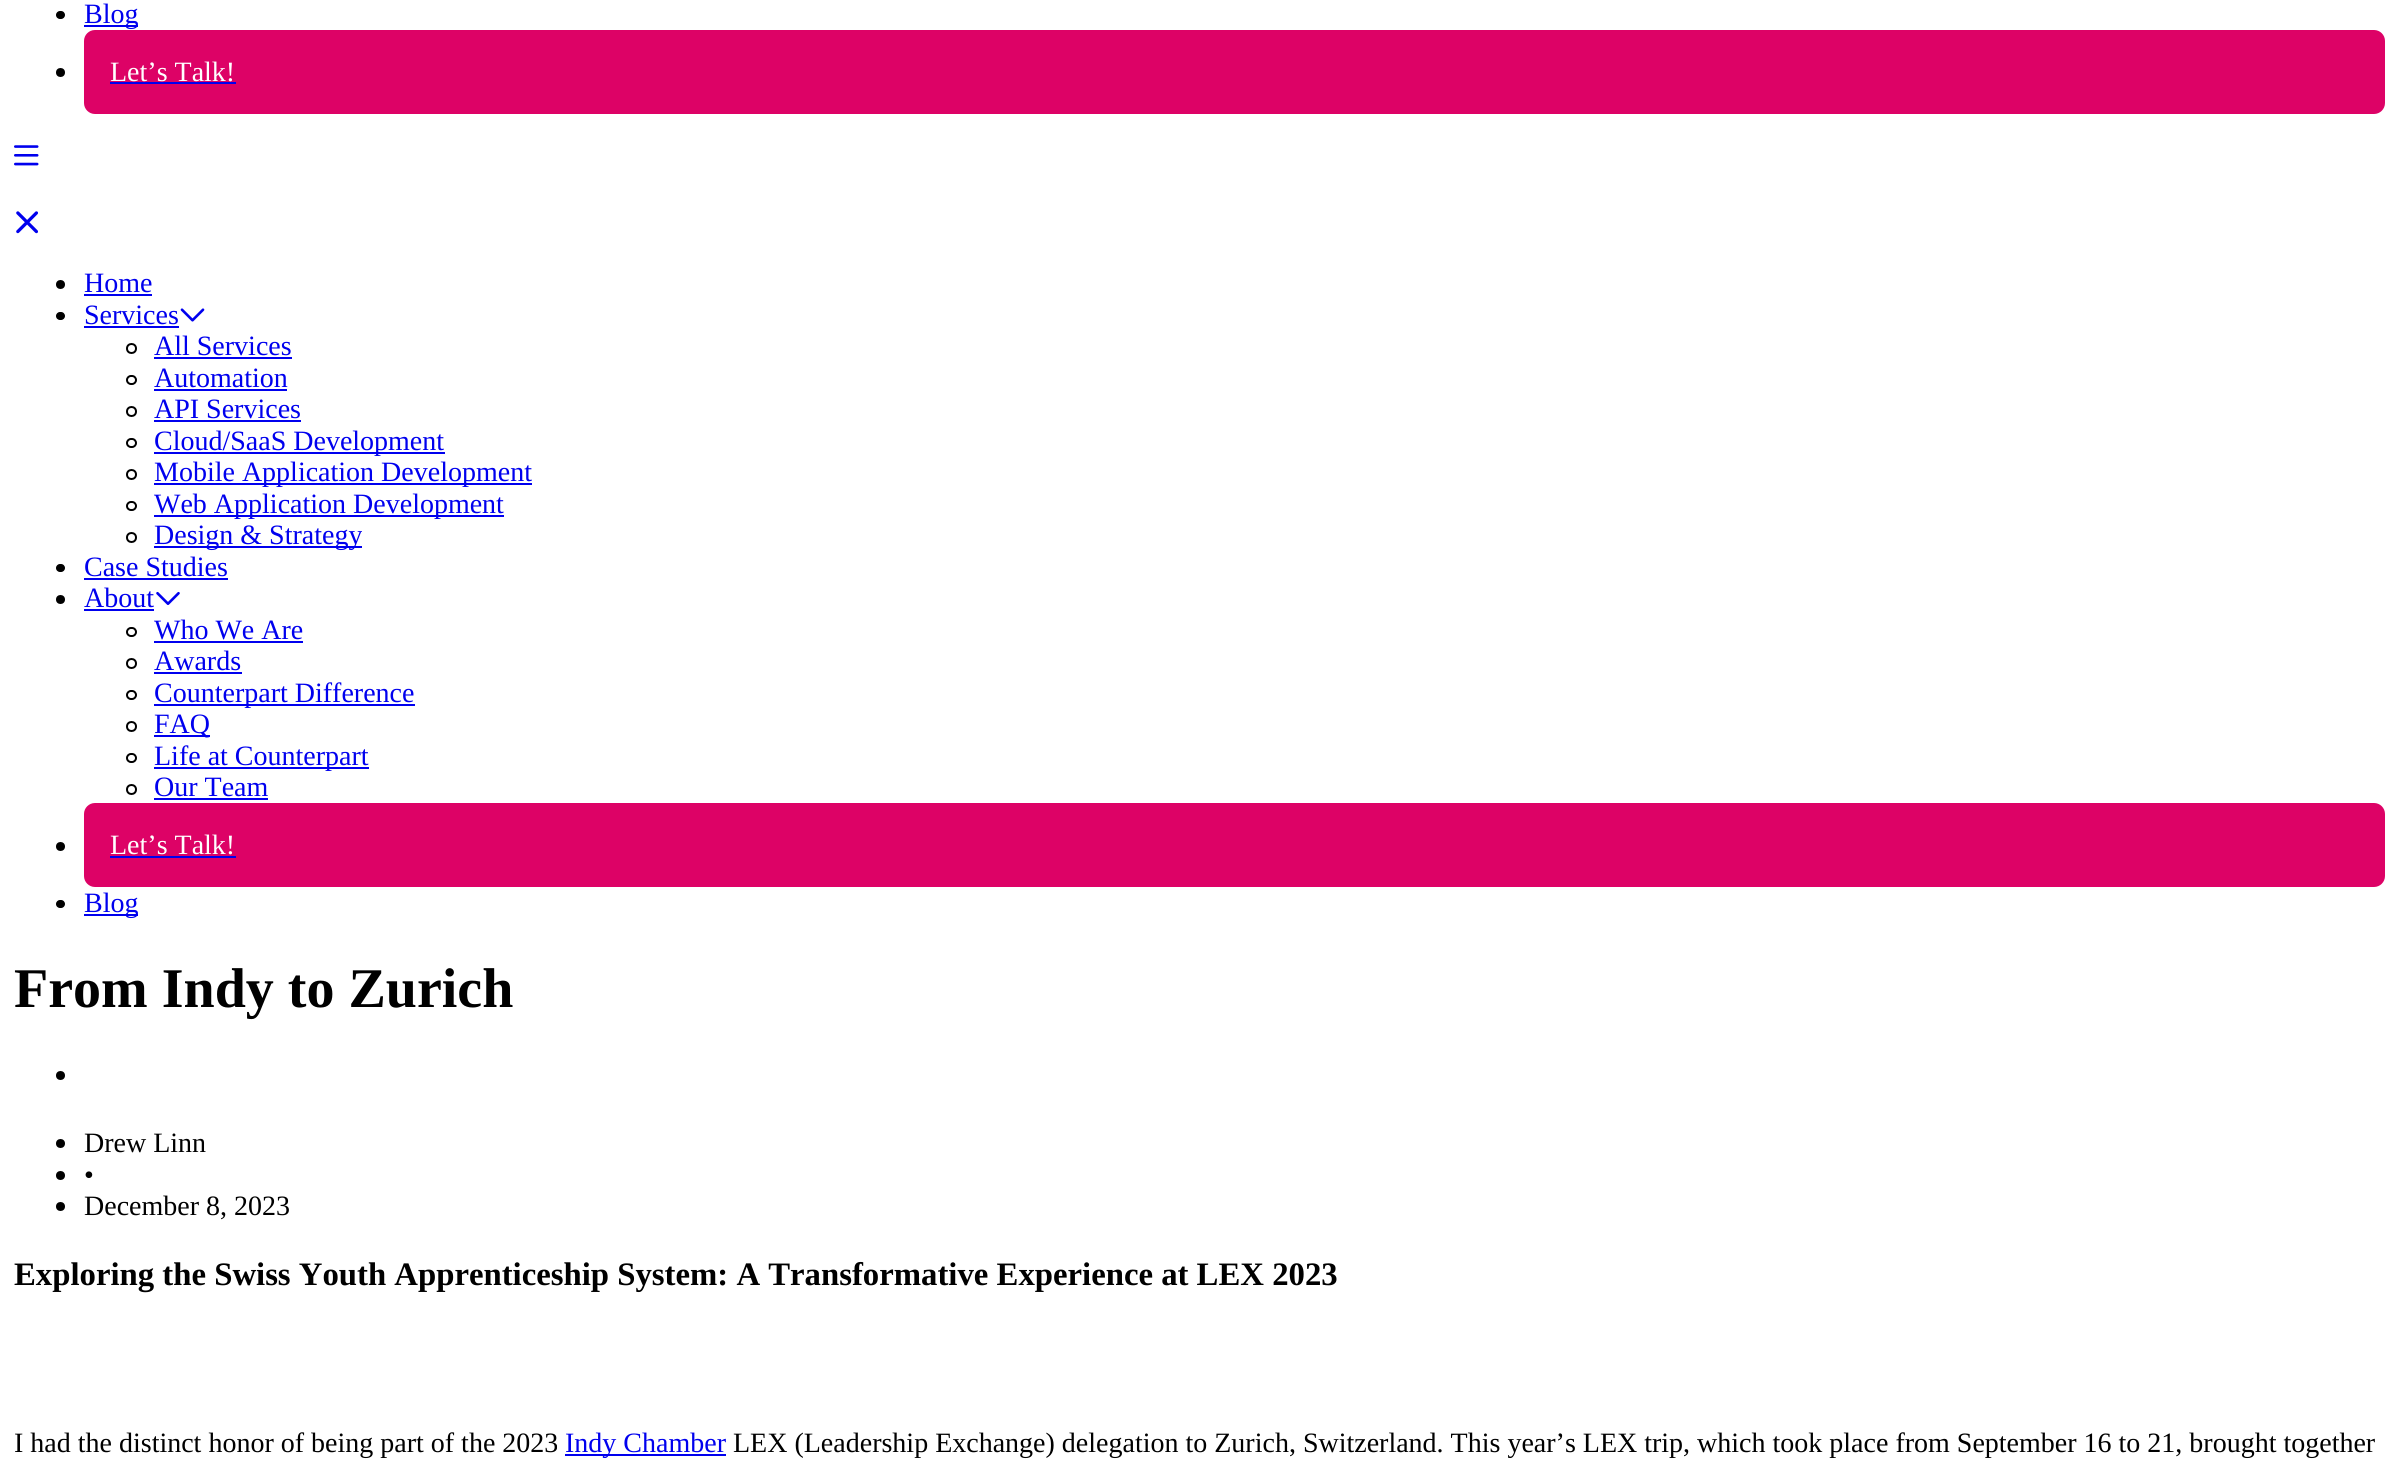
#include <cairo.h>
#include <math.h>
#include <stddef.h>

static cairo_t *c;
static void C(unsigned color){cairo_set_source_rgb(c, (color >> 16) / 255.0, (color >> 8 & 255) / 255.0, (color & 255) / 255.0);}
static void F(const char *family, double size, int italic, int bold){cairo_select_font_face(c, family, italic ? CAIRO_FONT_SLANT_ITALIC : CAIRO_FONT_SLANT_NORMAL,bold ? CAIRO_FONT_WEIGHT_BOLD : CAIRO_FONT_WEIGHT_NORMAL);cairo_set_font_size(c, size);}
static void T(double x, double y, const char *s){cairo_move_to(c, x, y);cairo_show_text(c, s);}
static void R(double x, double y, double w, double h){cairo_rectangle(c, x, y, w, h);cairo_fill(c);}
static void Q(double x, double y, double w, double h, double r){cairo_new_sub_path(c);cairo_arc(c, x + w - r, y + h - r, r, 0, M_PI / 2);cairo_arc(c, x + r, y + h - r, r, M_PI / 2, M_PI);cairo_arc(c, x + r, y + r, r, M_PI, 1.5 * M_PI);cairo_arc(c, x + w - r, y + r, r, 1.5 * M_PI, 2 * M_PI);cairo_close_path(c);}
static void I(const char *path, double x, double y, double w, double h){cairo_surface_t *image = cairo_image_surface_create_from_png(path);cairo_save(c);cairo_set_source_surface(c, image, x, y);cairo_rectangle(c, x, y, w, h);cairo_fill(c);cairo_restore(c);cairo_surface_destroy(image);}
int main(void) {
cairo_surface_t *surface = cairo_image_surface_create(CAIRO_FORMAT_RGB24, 2398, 1469);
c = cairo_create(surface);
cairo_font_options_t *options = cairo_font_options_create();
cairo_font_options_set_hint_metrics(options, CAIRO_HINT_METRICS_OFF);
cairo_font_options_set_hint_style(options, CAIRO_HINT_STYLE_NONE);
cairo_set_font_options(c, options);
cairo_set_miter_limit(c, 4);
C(0xffffff);
cairo_paint(c);
C(0x000000);
Q(56,11,9,8,4);
cairo_fill(c);
C(0x0000ee);
R(84,25,54,2);
F("Liberation Serif",28,0,0);
T(84,23,"Blog");
C(0x000000);
cairo_new_path(c);
cairo_arc(c,60.5,72.5,4.5,0,2 * M_PI);
cairo_fill(c);
C(0xdd0266);
Q(84,30,2301,84,11);
cairo_fill(c);
C(0xffffff);
T(110,81,"Let’s Talk!");
C(0x0000ee);
R(110,82,126,2);
I("1.png",14,145,25,21);
I("2.png",16,211,22,23);
C(0x000000);
cairo_arc(c,60.5,284.5,4.5,0,2 * M_PI);
cairo_fill(c);
C(0x0000ee);
T(84,292,"Home");
R(84,294,68,2);
C(0x000000);
Q(56,312,9,8,4);
cairo_fill(c);
C(0x0000ee);
T(84,324,"Services");
R(84,326,95,2);
I("3.png",180,308,25,14);
cairo_arc(c,131.5,348.5,4.5,0,2 * M_PI);
C(0x000000);
cairo_stroke(c);
C(0x0000ee);
T(154,355,"All Services");
R(154,357,138,2);
Q(127,376,9,8,4);
C(0x000000);
cairo_stroke(c);
C(0x0000ee);
T(154,387,"Automation");
R(154,389,133,2);
cairo_new_path(c);
cairo_arc(c,131.5,411.5,4.5,0,2 * M_PI);
C(0x000000);
cairo_stroke(c);
C(0x0000ee);
T(154,418,"API Services");
R(154,420,147,2);
Q(127,439,9,8,4);
C(0x000000);
cairo_stroke(c);
C(0x0000ee);
R(154,452,291,2);
T(154,450,"Cloud/SaaS Development");
cairo_new_path(c);
cairo_arc(c,131.5,474.5,4.5,0,2 * M_PI);
C(0x000000);
cairo_stroke(c);
C(0x0000ee);
R(154,483,378,2);
T(154,481,"Mobile Application Development");
Q(127,502,9,8,4);
C(0x000000);
cairo_stroke(c);
C(0x0000ee);
R(154,515,350,2);
T(154,513,"Web Application Development");
cairo_new_path(c);
cairo_arc(c,131.5,537.5,4.5,0,2 * M_PI);
C(0x000000);
cairo_stroke(c);
C(0x0000ee);
R(154,546,208,2);
T(154,544,"Design & Strategy");
C(0x000000);
Q(56,564,9,8,4);
cairo_fill(c);
C(0x0000ee);
T(84,576,"Case Studies");
R(84,578,144,2);
C(0x000000);
cairo_new_path(c);
cairo_arc(c,60.5,599.5,4.5,0,2 * M_PI);
cairo_fill(c);
C(0x0000ee);
T(84,607,"About");
R(84,609,70,2);
I("4.png",156,591,24,14);
Q(127,628,9,8,4);
C(0x000000);
cairo_stroke(c);
C(0x0000ee);
T(154,639,"Who We Are");
R(154,641,149,2);
cairo_new_path(c);
cairo_arc(c,131.5,663.5,4.5,0,2 * M_PI);
C(0x000000);
cairo_stroke(c);
C(0x0000ee);
T(154,670,"Awards");
R(154,672,88,2);
Q(127,691,9,8,4);
C(0x000000);
cairo_stroke(c);
C(0x0000ee);
R(154,704,261,2);
T(154,702,"Counterpart Difference");
cairo_new_path(c);
cairo_arc(c,131.5,726.5,4.5,0,2 * M_PI);
C(0x000000);
cairo_stroke(c);
C(0x0000ee);
R(154,735,56,2);
T(154,733,"FAQ");
Q(127,754,9,8,4);
C(0x000000);
cairo_stroke(c);
C(0x0000ee);
R(154,767,215,2);
T(154,765,"Life at Counterpart");
cairo_new_path(c);
cairo_arc(c,131.5,789.5,4.5,0,2 * M_PI);
C(0x000000);
cairo_stroke(c);
C(0x0000ee);
T(154,796,"Our Team");
R(154,798,114,2);
C(0x000000);
cairo_new_path(c);
cairo_arc(c,60.5,846.5,4.5,0,2 * M_PI);
cairo_fill(c);
C(0xdd0266);
Q(84,803,2301,84,11);
cairo_fill(c);
C(0xffffff);
T(110,854,"Let’s Talk!");
C(0x0000ee);
R(110,856,126,2);
C(0x000000);
Q(56,900,9,8,4);
cairo_fill(c);
C(0x0000ee);
R(84,914,54,2);
T(84,912,"Blog");
F("Liberation Serif",56,0,1);
C(0x000000);
T(14,1007,"From Indy to Zurich");
cairo_new_path(c);
cairo_arc(c,60.5,1075.5,4.5,0,2 * M_PI);
cairo_fill(c);
cairo_arc(c,60.5,1143.5,4.5,0,2 * M_PI);
cairo_fill(c);
F("Liberation Serif",28,0,0);
T(84,1152,"Drew Linn");
cairo_new_path(c);
cairo_arc(c,60.5,1175.5,4.5,0,2 * M_PI);
cairo_fill(c);
T(84,1184,"•");
cairo_new_path(c);
cairo_arc(c,60.5,1206.5,4.5,0,2 * M_PI);
cairo_fill(c);
T(84,1215,"December 8, 2023");
F("Liberation Serif",32.75,0,1);
T(14,1285,"Exploring the Swiss Youth Apprenticeship System: A Transformative Experience at LEX 2023");
F("Liberation Serif",28,0,0);
T(14,1452,"I had the distinct honor of being part of the 2023");
C(0x0000ee);
R(565,1454,161,2);
T(565,1452,"Indy Chamber");
C(0x000000);
T(733,1452,"LEX (Leadership Exchange) delegation to Zurich, Switzerland. This year’s LEX trip, which took place from September 16 to 21, brought together");
cairo_surface_write_to_png(surface, "o.png");
cairo_font_options_destroy(options);
cairo_destroy(c);
cairo_surface_destroy(surface);
return 0;
}
